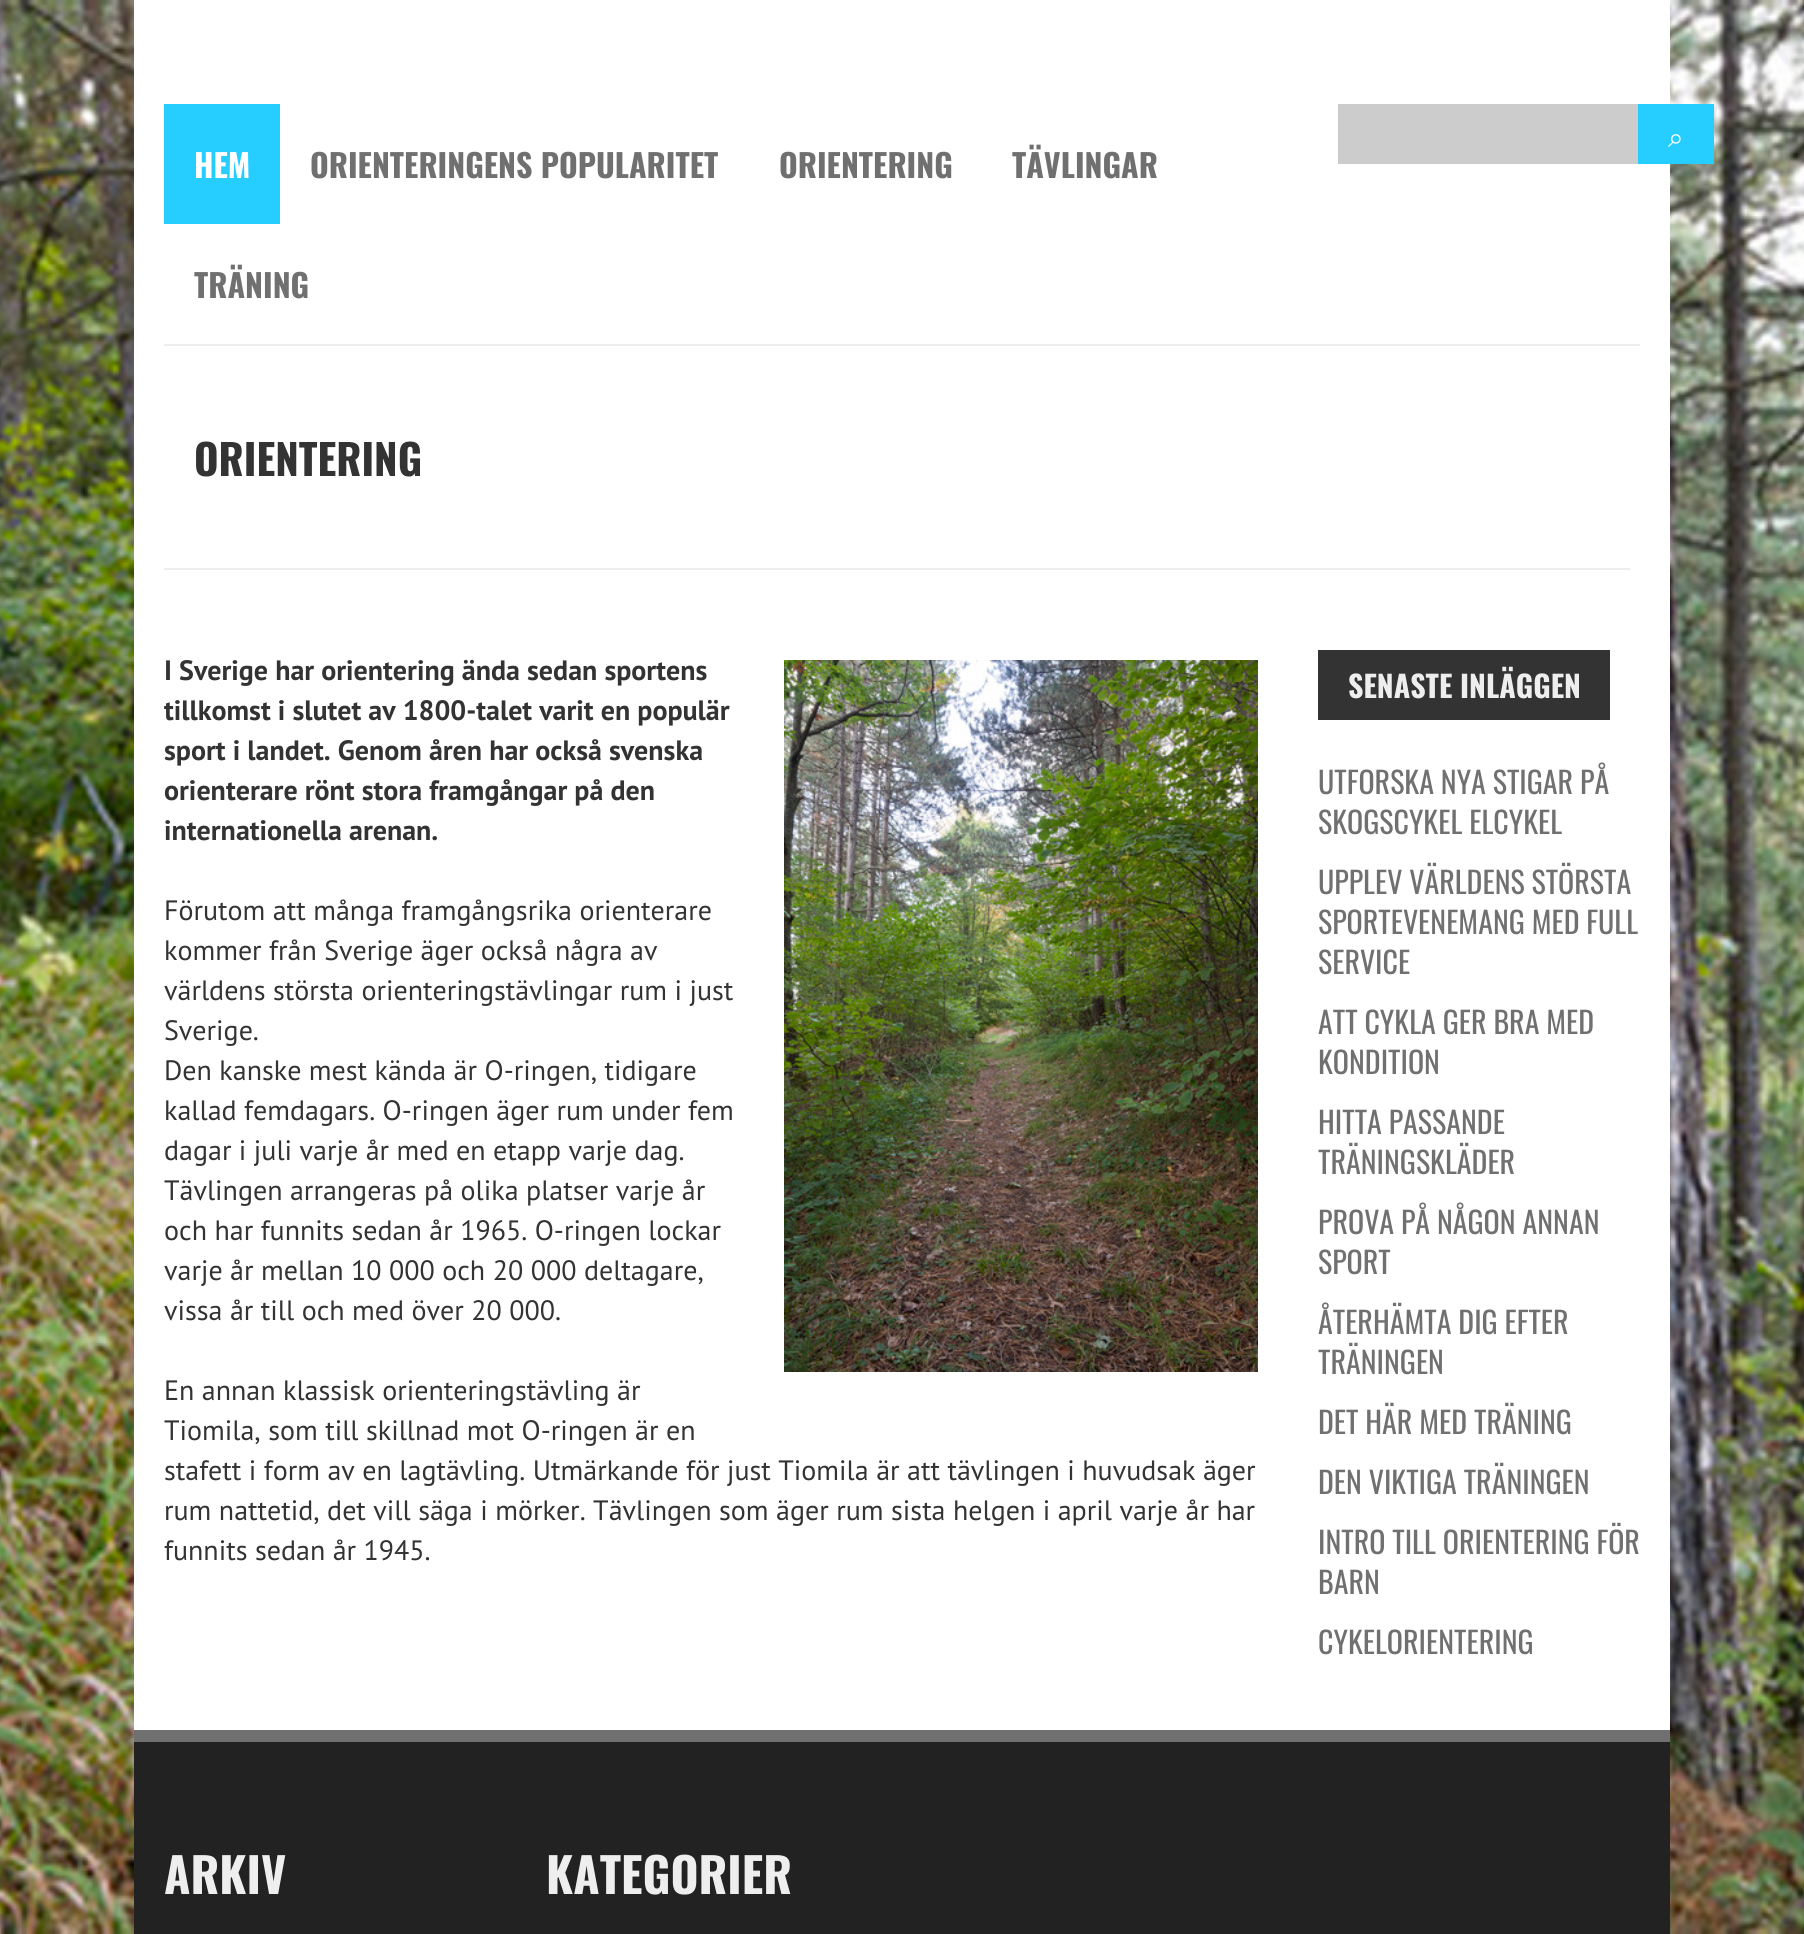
#include <cairo.h>
#include <math.h>
#include <stddef.h>

static cairo_t *c;
static void C(unsigned color){cairo_set_source_rgb(c, (color >> 16) / 255.0, (color >> 8 & 255) / 255.0, (color & 255) / 255.0);}
static void F(const char *family, double size, int italic, int bold){cairo_select_font_face(c, family, italic ? CAIRO_FONT_SLANT_ITALIC : CAIRO_FONT_SLANT_NORMAL,bold ? CAIRO_FONT_WEIGHT_BOLD : CAIRO_FONT_WEIGHT_NORMAL);cairo_set_font_size(c, size);}
static void T(double x, double y, const char *s){cairo_move_to(c, x, y);cairo_show_text(c, s);}
static void R(double x, double y, double w, double h){cairo_rectangle(c, x, y, w, h);cairo_fill(c);}
static void I(const char *path, double x, double y, double w, double h){cairo_surface_t *image = cairo_image_surface_create_from_png(path);cairo_save(c);cairo_set_source_surface(c, image, x, y);cairo_rectangle(c, x, y, w, h);cairo_fill(c);cairo_restore(c);cairo_surface_destroy(image);}
int main(void) {
cairo_surface_t *surface = cairo_image_surface_create(CAIRO_FORMAT_RGB24, 1804, 1934);
c = cairo_create(surface);
cairo_font_options_t *options = cairo_font_options_create();
cairo_font_options_set_hint_metrics(options, CAIRO_HINT_METRICS_OFF);
cairo_font_options_set_hint_style(options, CAIRO_HINT_STYLE_NONE);
cairo_set_font_options(c, options);
cairo_set_miter_limit(c, 4);
C(0xffffff);
cairo_paint(c);
I("1.png",0,0,1804,1934);
C(0xffffff);
R(134,0,1536,1730);
C(0xeeeeee);
R(164,344,1476,2);
C(0xcccccc);
R(1338,104,300,60);
C(0x25ceff);
R(1638,104,76,60);
F("FreeSerif",28,0,0);
C(0xffffff);
T(1668,147,"⌕");
C(0x25ceff);
R(164,104,116,120);
F("Oswald",32,0,1);
C(0xffffff);
T(194,178,"HEM");
C(0x707070);
T(310,178,"ORIENTERINGENS POPULARITET");
T(779,178,"ORIENTERING");
T(1012,178,"TÄVLINGAR");
T(194,298,"TRÄNING");
C(0xeeeeee);
R(164,568,1466,2);
F("Oswald",42,0,1);
C(0x333333);
T(194,476,"ORIENTERING");
F("PT Sans",28,0,1);
T(164,680,"I Sverige har orientering ända sedan sportens");
I("2.png",784,660,474,712);
T(164,720,"tillkomst i slutet av 1800-talet varit en populär");
T(164,760,"sport i landet. Genom åren har också svenska");
T(164,800,"orienterare rönt stora framgångar på den");
T(164,840,"internationella arenan.");
F("PT Sans",28,0,0);
T(164,920,"Förutom att många framgångsrika orienterare");
T(164,960,"kommer från Sverige äger också några av");
T(164,1000,"världens största orienteringstävlingar rum i just");
T(164,1040,"Sverige.");
T(164,1080,"Den kanske mest kända är O-ringen, tidigare");
T(164,1120,"kallad femdagars. O-ringen äger rum under fem");
T(164,1160,"dagar i juli varje år med en etapp varje dag.");
T(164,1200,"Tävlingen arrangeras på olika platser varje år");
T(164,1240,"och har funnits sedan år 1965. O-ringen lockar");
T(164,1280,"varje år mellan 10 000 och 20 000 deltagare,");
T(164,1320,"vissa år till och med över 20 000.");
T(164,1400,"En annan klassisk orienteringstävling är");
T(164,1440,"Tiomila, som till skillnad mot O-ringen är en");
T(164,1480,"stafett i form av en lagtävling. Utmärkande för just Tiomila är att tävlingen i huvudsak äger");
T(164,1520,"rum nattetid, det vill säga i mörker. Tävlingen som äger rum sista helgen i april varje år har");
T(164,1560,"funnits sedan år 1945.");
R(1318,650,292,70);
F("Oswald",30,0,1);
C(0xeeeeee);
T(1348,698,"SENASTE INLÄGGEN");
F("Oswald",30,0,0);
C(0x707070);
T(1318,794,"UTFORSKA NYA STIGAR PÅ");
T(1318,834,"SKOGSCYKEL ELCYKEL");
T(1318,894,"UPPLEV VÄRLDENS STÖRSTA");
T(1318,934,"SPORTEVENEMANG MED FULL");
T(1318,974,"SERVICE");
T(1318,1034,"ATT CYKLA GER BRA MED");
T(1318,1074,"KONDITION");
T(1318,1134,"HITTA PASSANDE");
T(1318,1174,"TRÄNINGSKLÄDER");
T(1318,1234,"PROVA PÅ NÅGON ANNAN");
T(1318,1274,"SPORT");
T(1318,1334,"ÅTERHÄMTA DIG EFTER");
T(1318,1374,"TRÄNINGEN");
T(1318,1434,"DET HÄR MED TRÄNING");
T(1318,1494,"DEN VIKTIGA TRÄNINGEN");
T(1318,1554,"INTRO TILL ORIENTERING FÖR");
T(1318,1594,"BARN");
T(1318,1654,"CYKELORIENTERING");
C(0x222222);
R(134,1742,1536,192);
C(0x707070);
R(134,1730,1536,12);
F("Oswald",48,0,1);
C(0xeeeeee);
T(164,1894,"ARKIV");
T(546,1894,"KATEGORIER");
cairo_surface_write_to_png(surface, "o.png");
cairo_font_options_destroy(options);
cairo_destroy(c);
cairo_surface_destroy(surface);
return 0;
}
